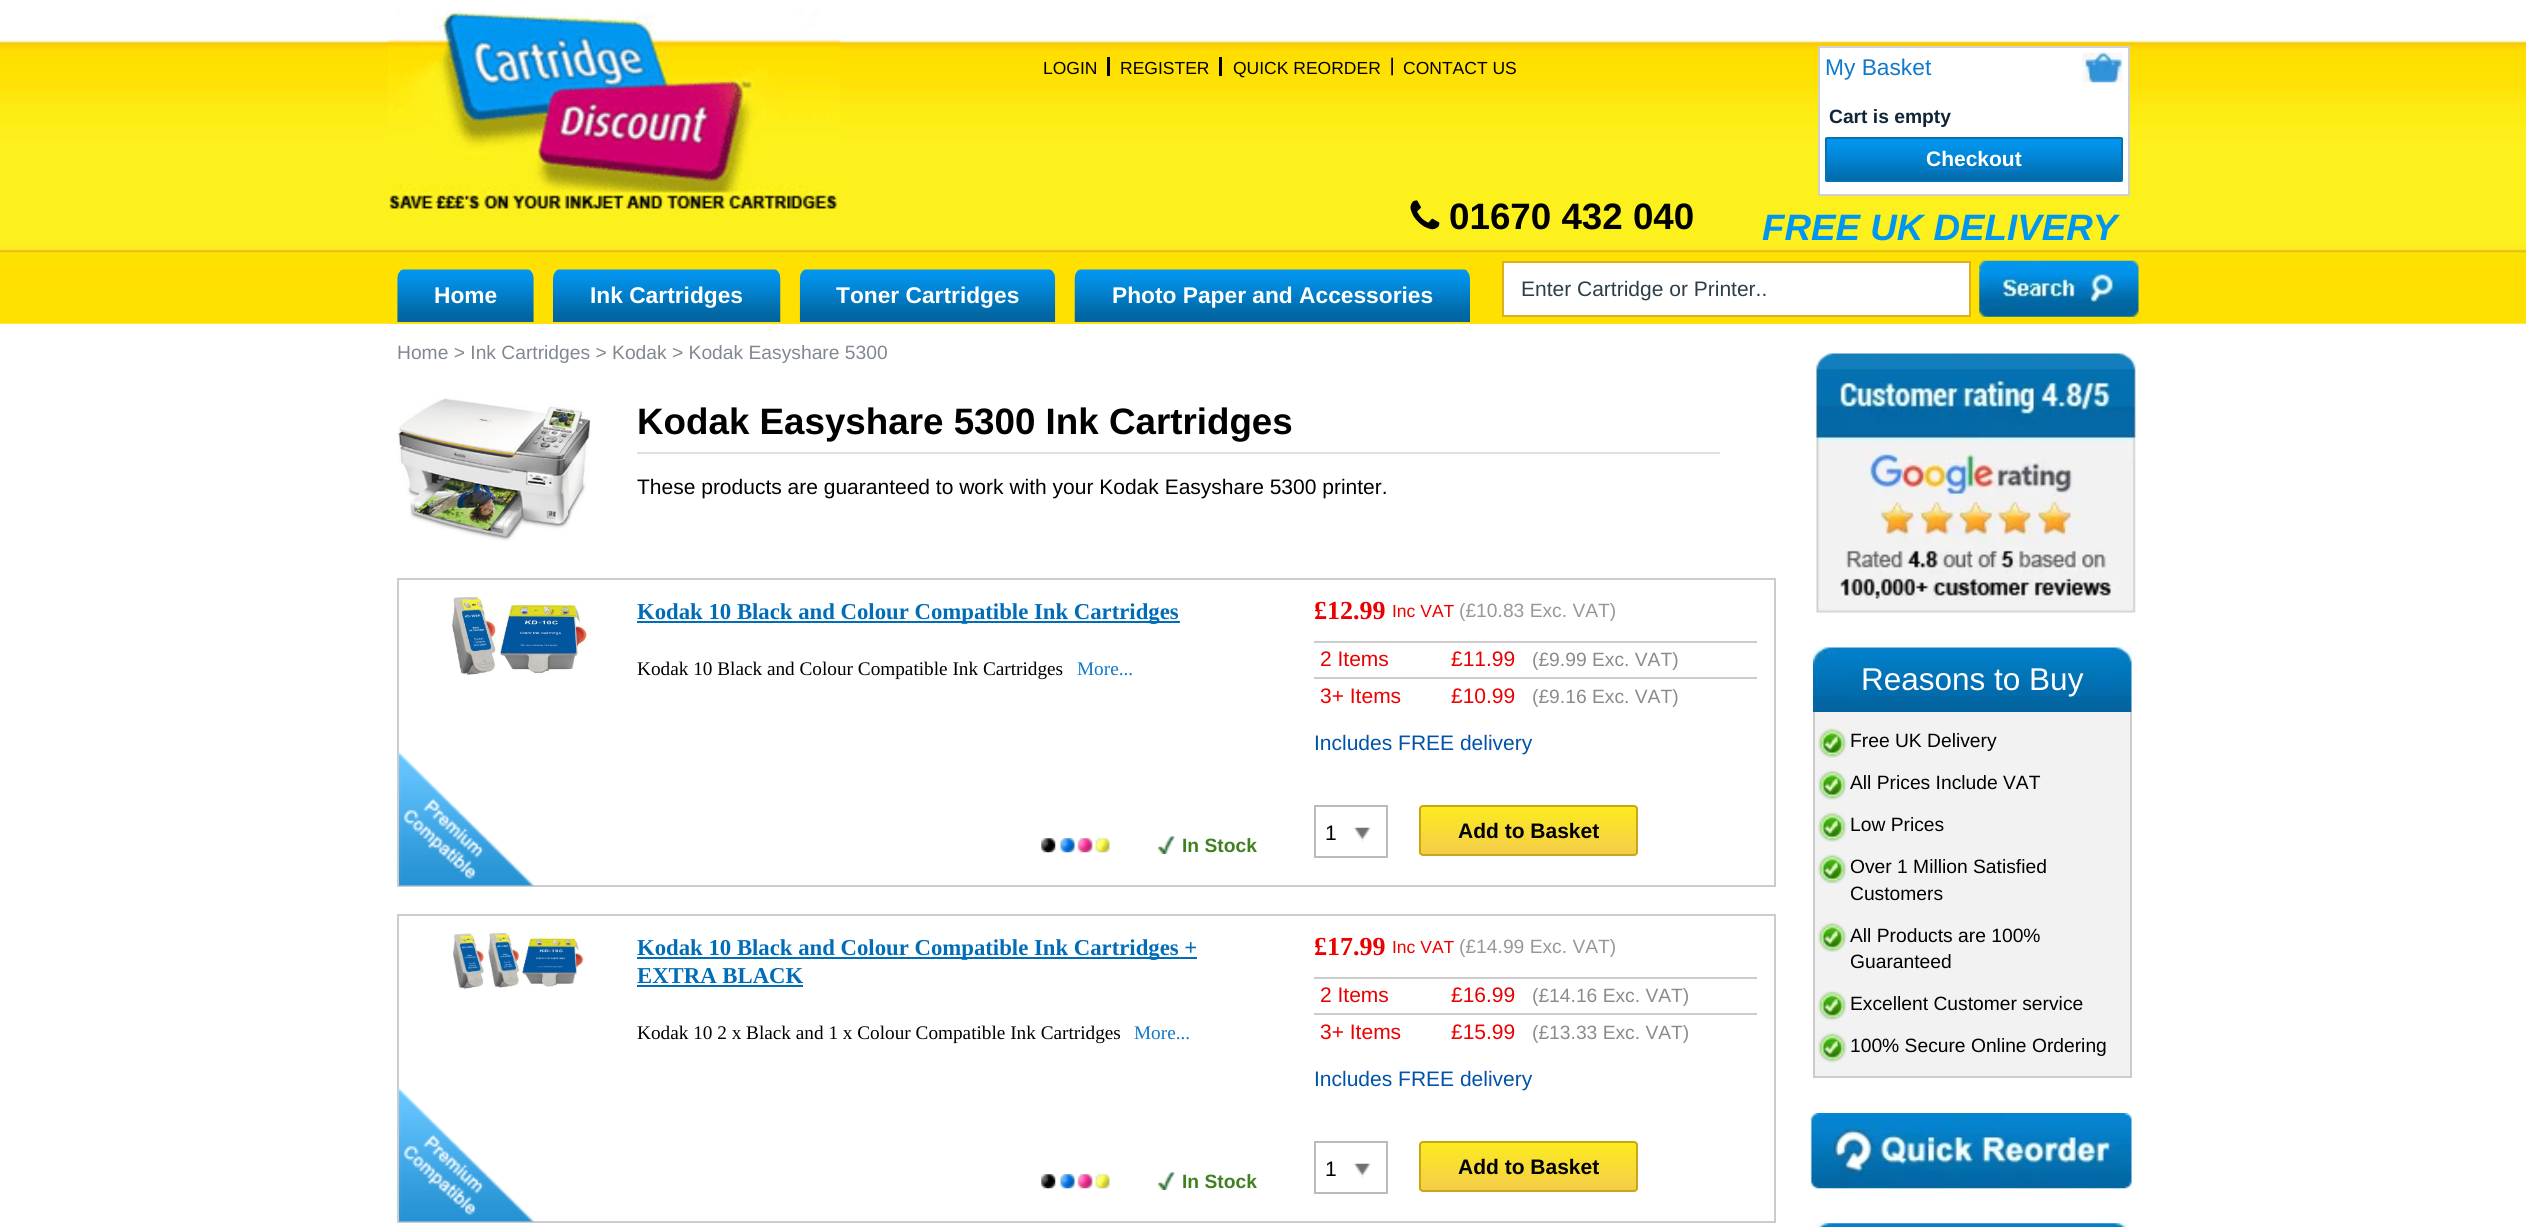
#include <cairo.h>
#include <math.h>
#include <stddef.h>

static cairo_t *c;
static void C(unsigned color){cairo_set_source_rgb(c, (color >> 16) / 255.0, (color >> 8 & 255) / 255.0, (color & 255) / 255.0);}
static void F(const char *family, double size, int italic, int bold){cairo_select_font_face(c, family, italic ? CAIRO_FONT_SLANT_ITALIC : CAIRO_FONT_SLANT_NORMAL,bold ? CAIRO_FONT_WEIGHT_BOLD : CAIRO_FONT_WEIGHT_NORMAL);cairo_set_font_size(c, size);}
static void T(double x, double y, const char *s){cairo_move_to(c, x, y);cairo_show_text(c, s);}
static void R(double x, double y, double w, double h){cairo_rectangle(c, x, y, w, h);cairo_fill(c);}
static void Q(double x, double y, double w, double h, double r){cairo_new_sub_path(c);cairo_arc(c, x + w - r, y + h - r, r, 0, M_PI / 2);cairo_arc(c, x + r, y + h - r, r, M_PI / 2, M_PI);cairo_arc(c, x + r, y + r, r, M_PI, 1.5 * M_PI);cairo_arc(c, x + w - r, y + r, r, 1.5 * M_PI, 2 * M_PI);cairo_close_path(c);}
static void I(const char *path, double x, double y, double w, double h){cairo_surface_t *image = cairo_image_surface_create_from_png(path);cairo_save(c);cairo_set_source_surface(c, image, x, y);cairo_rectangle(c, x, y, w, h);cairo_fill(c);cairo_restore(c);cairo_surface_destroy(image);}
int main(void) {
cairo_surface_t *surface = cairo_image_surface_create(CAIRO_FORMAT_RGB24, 2526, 1227);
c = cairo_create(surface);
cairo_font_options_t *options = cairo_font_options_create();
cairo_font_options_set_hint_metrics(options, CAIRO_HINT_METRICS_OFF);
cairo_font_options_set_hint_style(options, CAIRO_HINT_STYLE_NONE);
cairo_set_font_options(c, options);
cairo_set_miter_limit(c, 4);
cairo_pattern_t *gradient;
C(0xffffff);
cairo_paint(c);
I("1.png",0,40,2526,284);
I("2.png",388,323,1751,1);
I("3.png",388,10,452,207);
C(0x000000);
R(1107,57,3,19);
F("Liberation Sans",17.5,0,0);
T(1043,74,"LOGIN");
R(1219,57,3,19);
T(1120,74,"REGISTER");
I("4.png",1391,57,2,19);
T(1233,74,"QUICK REORDER");
T(1403,74,"CONTACT US");
C(0xffffff);
cairo_rectangle(c,1819,47,310,148);
cairo_fill_preserve(c);
C(0xd0d0d0);
cairo_stroke(c);
F("Liberation Sans",22.75,0,0);
C(0x1079cb);
T(1825,75,"My Basket");
I("5.png",2082,52,41,31);
F("Liberation Sans",19.25,0,1);
C(0x112536);
T(1829,123,"Cart is empty");
I("6.png",1825,138,298,44);
Q(1826,138,296,43,1);
C(0x0672b0);
cairo_stroke(c);
F("Liberation Sans",21,0,1);
C(0xffffff);
T(1926,166,"Checkout");
C(0x1079cb);
R(1927,169,94,1);
I("7.png",1410,200,30,30);
F("Liberation Sans",36.75,0,1);
C(0x000000);
T(1449,229,"01670 432 040");
F("Liberation Sans",36.75,1,1);
C(0x0095f1);
T(1762,240,"FREE UK DELIVERY");
I("8.png",397,269,137,53);
F("Liberation Sans",22.75,0,1);
C(0xffffff);
T(434,303,"Home");
I("9.png",553,269,228,53);
T(590,303,"Ink Cartridges");
I("10.png",799,269,257,53);
T(836,303,"Toner Cartridges");
I("11.png",1074,269,396,53);
T(1112,303,"Photo Paper and Accessories");
cairo_rectangle(c,1503,262,467,54);
cairo_fill_preserve(c);
C(0xdfaf1f);
cairo_stroke(c);
F("Liberation Sans",21,0,0);
C(0x2c3e49);
T(1521,296,"Enter Cartridge or Printer..");
I("12.png",1979,260,160,57);
F("Liberation Sans",19.25,0,0);
C(0x818891);
T(397,359,"Home > Ink Cartridges > Kodak > Kodak Easyshare 5300");
I("13.png",397,398,194,143);
C(0xe0e0e0);
R(637,452,1083,2);
F("Liberation Sans",36.75,0,1);
C(0x000000);
T(637,434,"Kodak Easyshare 5300 Ink Cartridges");
F("Liberation Sans",21,0,0);
T(637,494,"These products are guaranteed to work with your Kodak Easyshare 5300 printer.");
cairo_rectangle(c,398,579,1377,307);
C(0xcccccc);
cairo_stroke(c);
I("14.png",399,752,135,134);
I("15.png",452,597,136,78);
C(0x016db8);
R(637,621,543,2);
F("Liberation Serif",22.75,0,1);
T(637,619,"Kodak 10 Black and Colour Compatible Ink Cartridges");
F("Liberation Serif",19.25,0,0);
C(0x000000);
T(637,675,"Kodak 10 Black and Colour Compatible Ink Cartridges");
C(0x1079cb);
T(1077,675,"More...");
I("16.png",1041,838,15,15);
I("17.png",1060,838,50,15);
I("18.png",1158,836,17,18);
F("Liberation Sans",19.25,0,1);
C(0x408022);
T(1182,852,"In Stock");
F("Liberation Serif",26,0,1);
C(0xeb0000);
T(1314,619,"£12.99");
F("Liberation Sans",17.5,0,0);
T(1392,617,"Inc VAT");
F("Liberation Sans",19.25,0,0);
C(0x989898);
T(1459,617,"(£10.83 Exc. VAT)");
C(0xcccccc);
R(1314,641,443,2);
F("Liberation Sans",21,0,0);
C(0xeb0000);
T(1320,666,"2 Items");
T(1451,666,"£11.99");
F("Liberation Sans",19.25,0,0);
C(0x8b8b8b);
T(1532,666,"(£9.99 Exc. VAT)");
C(0xcccccc);
R(1314,677,443,2);
F("Liberation Sans",21,0,0);
C(0xeb0000);
T(1320,703,"3+ Items");
T(1451,703,"£10.99");
F("Liberation Sans",19.25,0,0);
C(0x8b8b8b);
T(1532,703,"(£9.16 Exc. VAT)");
F("Liberation Sans",21,0,0);
C(0x0053a6);
T(1314,750,"Includes FREE delivery");
cairo_rectangle(c,1315,806,72,51);
C(0xbbbbbb);
cairo_stroke(c);
I("19.png",1354,827,17,15);
C(0x000000);
T(1325,840,"1");
cairo_save(c);
Q(1419,805,219,51,4);
cairo_clip(c);
gradient = cairo_pattern_create_linear(1529,807,1529,854);
cairo_pattern_add_color_stop_rgba(gradient,0,0.988,0.922,0.122,1);
cairo_pattern_add_color_stop_rgba(gradient,1,0.957,0.804,0.29,1);
cairo_set_source(c,gradient);
cairo_pattern_destroy(gradient);
R(1419,807,219,47);
cairo_restore(c);
Q(1420,806,217,49,3);
C(0xc8a614);
cairo_stroke(c);
F("Liberation Sans",21,0,1);
C(0x000000);
T(1458,838,"Add to Basket");
cairo_rectangle(c,398,915,1377,307);
C(0xcccccc);
cairo_stroke(c);
I("14.png",399,1088,135,134);
I("20.png",453,933,131,56);
C(0x016db8);
R(637,957,560,2);
F("Liberation Serif",22.75,0,1);
T(637,955,"Kodak 10 Black and Colour Compatible Ink Cartridges +");
T(637,983,"EXTRA BLACK");
R(637,985,166,2);
F("Liberation Serif",19.25,0,0);
C(0x000000);
T(637,1039,"Kodak 10 2 x Black and 1 x Colour Compatible Ink Cartridges");
C(0x1079cb);
T(1134,1039,"More...");
I("16.png",1041,1174,15,15);
I("17.png",1060,1174,50,15);
I("18.png",1158,1172,17,18);
F("Liberation Sans",19.25,0,1);
C(0x408022);
T(1182,1188,"In Stock");
F("Liberation Serif",26,0,1);
C(0xeb0000);
T(1314,955,"£17.99");
F("Liberation Sans",17.5,0,0);
T(1392,953,"Inc VAT");
F("Liberation Sans",19.25,0,0);
C(0x989898);
T(1459,953,"(£14.99 Exc. VAT)");
C(0xcccccc);
R(1314,977,443,2);
F("Liberation Sans",21,0,0);
C(0xeb0000);
T(1320,1002,"2 Items");
T(1451,1002,"£16.99");
F("Liberation Sans",19.25,0,0);
C(0x8b8b8b);
T(1532,1002,"(£14.16 Exc. VAT)");
C(0xcccccc);
R(1314,1013,443,2);
F("Liberation Sans",21,0,0);
C(0xeb0000);
T(1320,1039,"3+ Items");
T(1451,1039,"£15.99");
F("Liberation Sans",19.25,0,0);
C(0x8b8b8b);
T(1532,1039,"(£13.33 Exc. VAT)");
F("Liberation Sans",21,0,0);
C(0x0053a6);
T(1314,1086,"Includes FREE delivery");
cairo_rectangle(c,1315,1142,72,51);
C(0xbbbbbb);
cairo_stroke(c);
I("19.png",1354,1163,17,15);
C(0x000000);
T(1325,1176,"1");
cairo_save(c);
Q(1419,1141,219,51,4);
cairo_clip(c);
gradient = cairo_pattern_create_linear(1529,1143,1529,1190);
cairo_pattern_add_color_stop_rgba(gradient,0,0.988,0.922,0.122,1);
cairo_pattern_add_color_stop_rgba(gradient,1,0.957,0.804,0.29,1);
cairo_set_source(c,gradient);
cairo_pattern_destroy(gradient);
R(1419,1143,219,47);
cairo_restore(c);
Q(1420,1142,217,49,3);
C(0xc8a614);
cairo_stroke(c);
F("Liberation Sans",21,0,1);
C(0x000000);
T(1458,1174,"Add to Basket");
I("21.png",1816,353,320,260);
I("22.png",1813,647,319,65);
F("Liberation Sans",31.5,0,0);
C(0xffffff);
T(1861,690,"Reasons to Buy");
C(0xf2f2f2);
R(1815,712,315,364);
C(0xcccccc);
R(2130,712,2,366);
R(1813,1076,319,2);
R(1813,712,2,366);
I("23.png",1818,728,29,30);
F("Liberation Sans",19.25,0,0);
C(0x000000);
T(1850,747,"Free UK Delivery");
I("23.png",1818,770,29,30);
T(1850,789,"All Prices Include VAT");
I("23.png",1818,812,29,30);
T(1850,831,"Low Prices");
I("23.png",1818,854,29,30);
T(1850,873,"Over 1 Million Satisfied");
T(1850,900,"Customers");
I("24.png",1818,922,29,30);
T(1850,942,"All Products are 100%");
T(1850,968,"Guaranteed");
I("25.png",1818,990,29,31);
T(1850,1010,"Excellent Customer service");
I("25.png",1818,1032,29,31);
T(1850,1052,"100% Secure Online Ordering");
I("26.png",1810,1113,322,76);
I("27.png",1813,1223,316,4);
cairo_surface_write_to_png(surface, "o.png");
cairo_font_options_destroy(options);
cairo_destroy(c);
cairo_surface_destroy(surface);
return 0;
}
